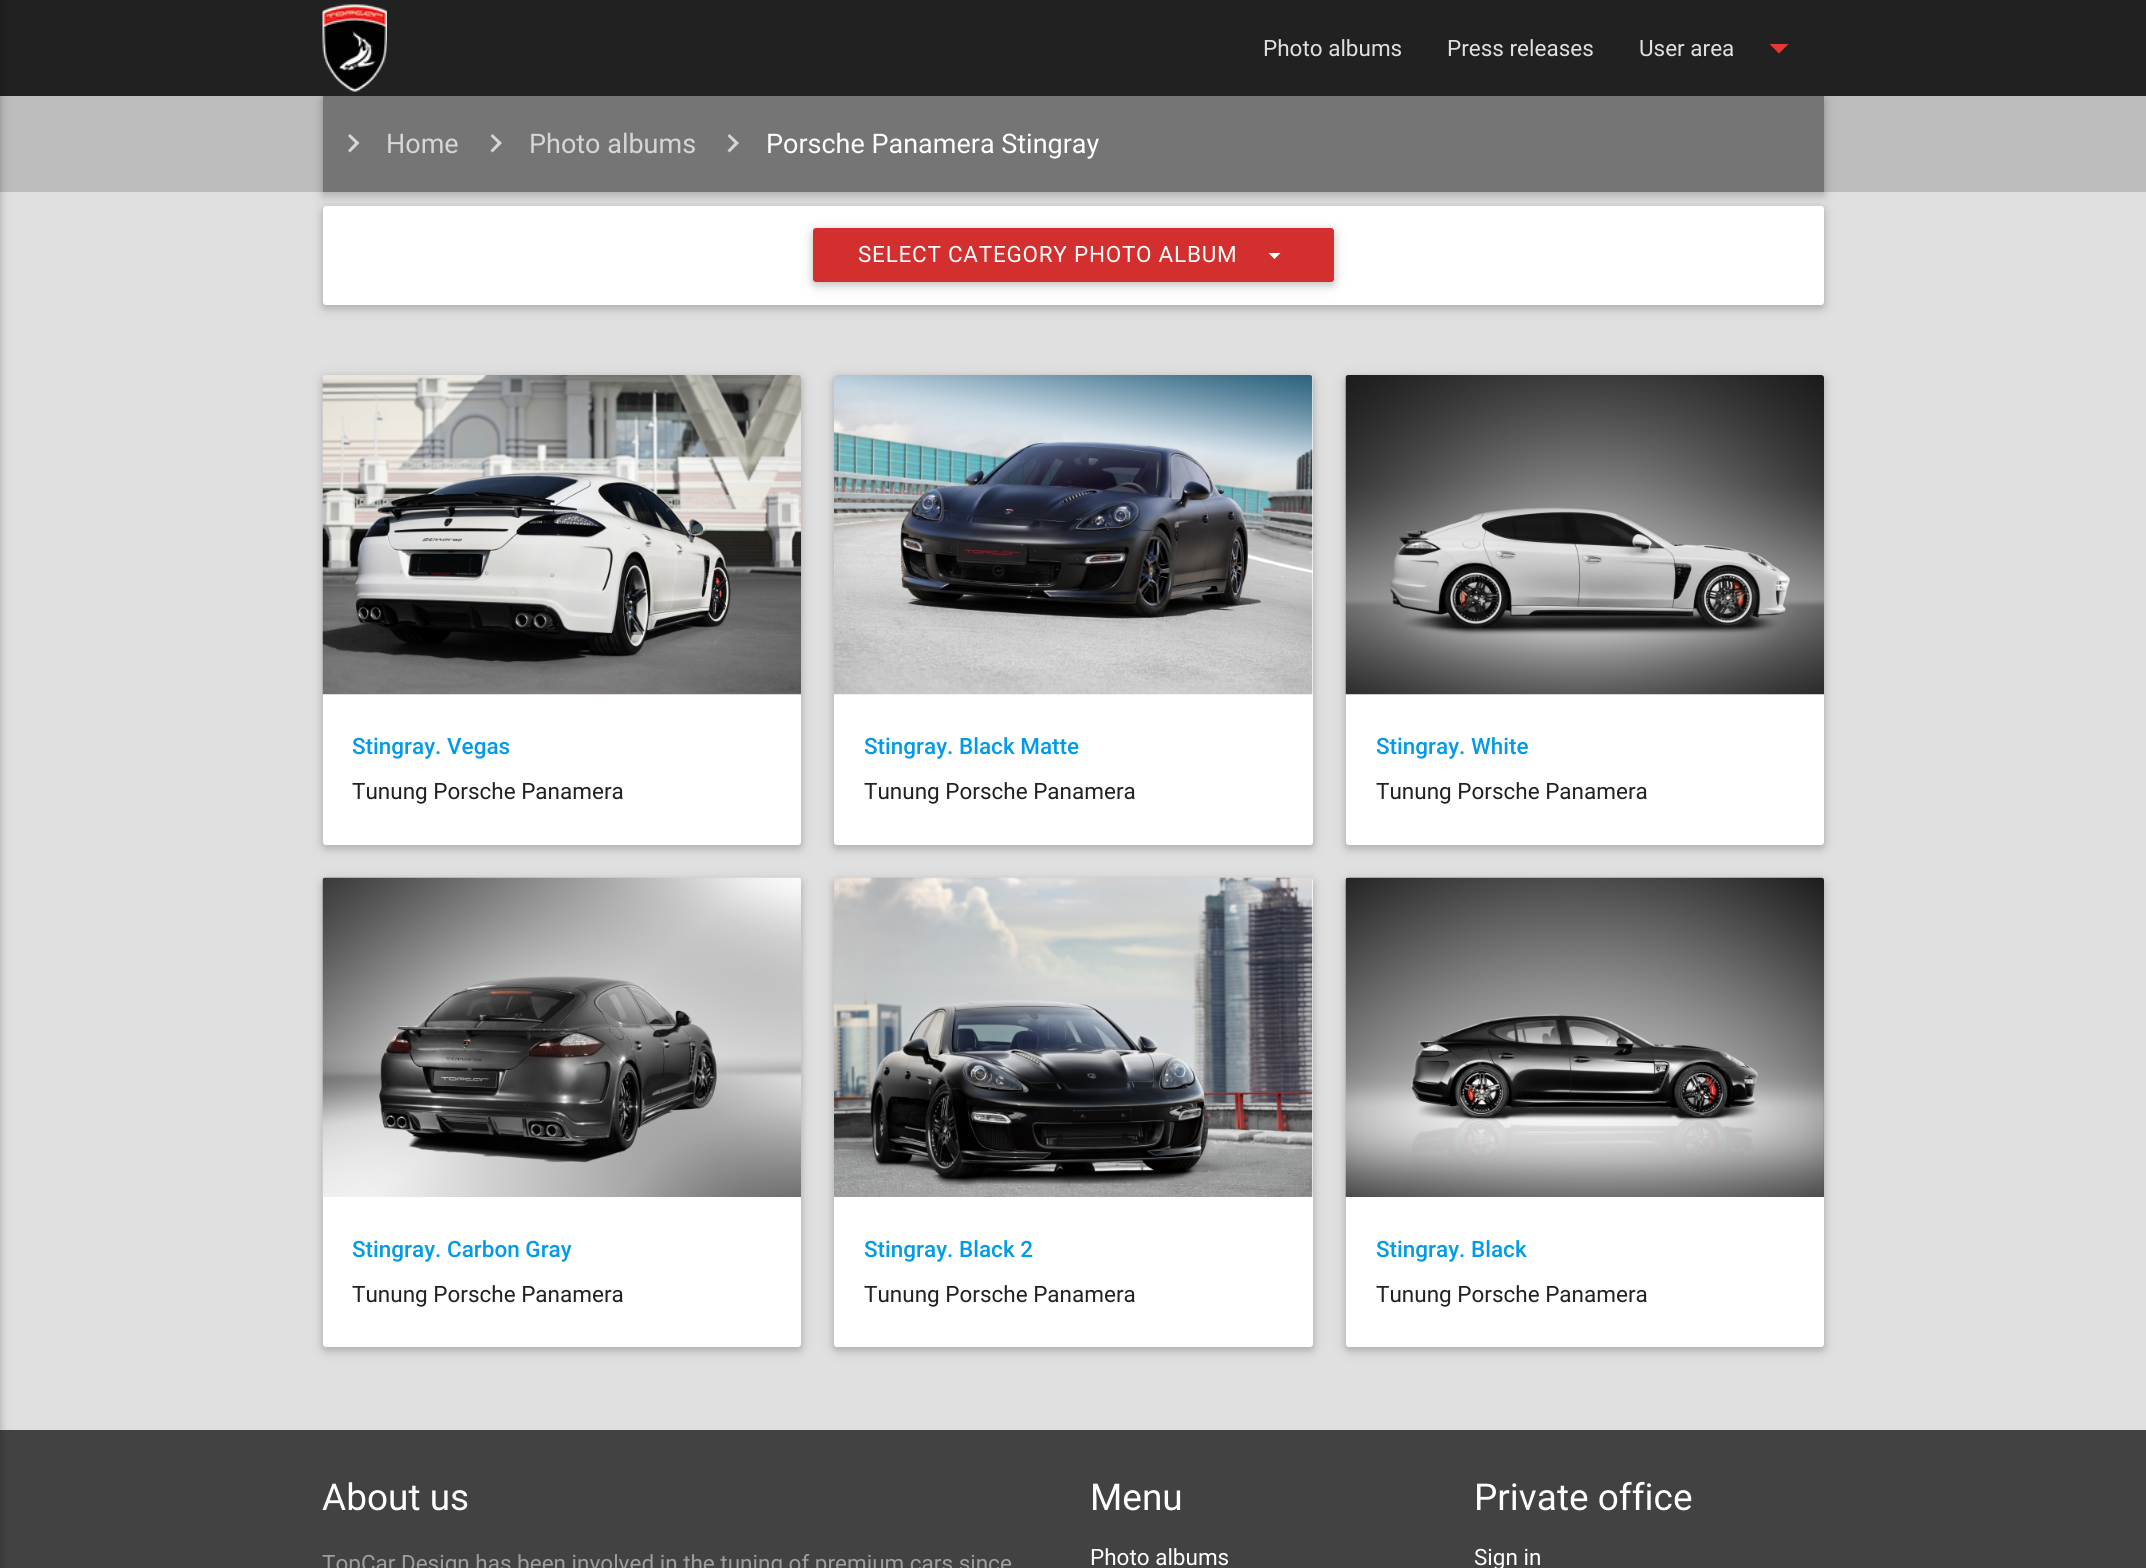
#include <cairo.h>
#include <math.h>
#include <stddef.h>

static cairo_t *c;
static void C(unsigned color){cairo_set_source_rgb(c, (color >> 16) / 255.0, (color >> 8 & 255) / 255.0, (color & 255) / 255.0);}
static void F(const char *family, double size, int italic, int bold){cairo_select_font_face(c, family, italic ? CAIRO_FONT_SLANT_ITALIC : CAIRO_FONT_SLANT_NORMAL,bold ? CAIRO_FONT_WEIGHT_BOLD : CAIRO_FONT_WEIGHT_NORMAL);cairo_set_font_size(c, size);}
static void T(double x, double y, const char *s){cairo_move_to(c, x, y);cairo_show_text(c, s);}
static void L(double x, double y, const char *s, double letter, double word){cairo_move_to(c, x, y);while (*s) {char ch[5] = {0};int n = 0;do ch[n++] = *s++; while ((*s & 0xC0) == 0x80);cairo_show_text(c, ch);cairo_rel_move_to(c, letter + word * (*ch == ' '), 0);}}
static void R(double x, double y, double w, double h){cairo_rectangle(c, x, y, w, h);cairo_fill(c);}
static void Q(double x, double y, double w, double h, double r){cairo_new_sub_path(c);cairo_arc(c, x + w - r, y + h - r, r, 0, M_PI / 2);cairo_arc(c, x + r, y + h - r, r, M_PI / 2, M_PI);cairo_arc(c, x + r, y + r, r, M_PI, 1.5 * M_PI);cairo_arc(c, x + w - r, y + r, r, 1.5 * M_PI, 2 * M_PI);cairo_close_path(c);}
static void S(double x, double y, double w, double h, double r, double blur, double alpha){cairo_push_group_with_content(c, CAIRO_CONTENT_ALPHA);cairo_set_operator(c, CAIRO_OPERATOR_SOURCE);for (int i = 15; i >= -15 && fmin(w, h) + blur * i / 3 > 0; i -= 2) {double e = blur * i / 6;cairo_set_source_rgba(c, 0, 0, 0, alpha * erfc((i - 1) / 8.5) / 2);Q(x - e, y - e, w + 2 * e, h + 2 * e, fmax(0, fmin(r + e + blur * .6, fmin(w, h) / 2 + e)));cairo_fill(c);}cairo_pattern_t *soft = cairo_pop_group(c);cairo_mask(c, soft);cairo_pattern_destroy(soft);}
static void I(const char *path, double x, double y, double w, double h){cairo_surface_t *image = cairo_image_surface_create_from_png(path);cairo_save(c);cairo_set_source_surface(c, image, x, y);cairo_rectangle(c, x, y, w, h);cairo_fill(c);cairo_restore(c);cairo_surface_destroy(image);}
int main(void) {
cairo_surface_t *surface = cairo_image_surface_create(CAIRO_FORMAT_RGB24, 2146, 1568);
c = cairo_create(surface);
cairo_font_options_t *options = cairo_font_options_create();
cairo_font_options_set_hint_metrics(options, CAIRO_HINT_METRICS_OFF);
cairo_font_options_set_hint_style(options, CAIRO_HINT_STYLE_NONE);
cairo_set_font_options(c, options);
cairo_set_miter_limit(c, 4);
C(0xe0e0e0);
cairo_paint(c);
C(0xbdbdbd);
R(0,96,2146,96);
C(0x000000);
S(323,99,1501,96,0,7.5,.12);
S(323,99,1501,96,0,4,.16);
C(0x212121);
R(0,0,2146,96);
C(0x424242);
R(0,1430,2146,138);
C(0x000000);
S(-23,3,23,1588,0,7.5,.12);
S(-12,3,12,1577,0,4,.16);
I("1.png",322,4,65,88);
F("Roboto",22.5,0,0);
C(0xe0e0e0);
T(1263,56,"Photo albums");
T(1447,56,"Press releases");
T(1639,56,"User area");
C(0xe53935);
cairo_new_path(c);
cairo_move_to(c,1769.5,44);
cairo_line_to(c,1788.5,44);
cairo_line_to(c,1779,53.5);
cairo_close_path(c);
cairo_fill(c);
C(0x757575);
R(323,96,1501,96);
C(0xd6d6d6);
cairo_new_path(c);
cairo_move_to(c,350,134);
cairo_line_to(c,359.5,143);
cairo_line_to(c,350,152.5);
cairo_line_to(c,348,150.5);
cairo_line_to(c,355,143);
cairo_line_to(c,348,136);
cairo_close_path(c);
cairo_fill(c);
F("Roboto",27,0,0);
T(386,153,"Home");
cairo_new_path(c);
cairo_move_to(c,492.5,134);
cairo_line_to(c,502,143);
cairo_line_to(c,492.5,152.5);
cairo_line_to(c,490.5,150.5);
cairo_line_to(c,497.5,143);
cairo_line_to(c,490.5,136);
cairo_close_path(c);
cairo_fill(c);
T(529,153,"Photo albums");
cairo_new_path(c);
cairo_move_to(c,729.5,134);
cairo_line_to(c,739,143);
cairo_line_to(c,729.5,152.5);
cairo_line_to(c,727.5,150.5);
cairo_line_to(c,734.5,143);
cairo_line_to(c,727.5,136);
cairo_close_path(c);
cairo_fill(c);
C(0xffffff);
T(766,153,"Porsche Panamera Stingray");
C(0x000000);
S(323,209,1501,99,3,7.5,.12);
S(323,209,1501,99,3,4,.16);
C(0xffffff);
Q(323,206,1501,99,3);
cairo_fill(c);
C(0x000000);
S(813,231,521,54,3,7.5,.12);
S(813,231,521,54,3,4,.16);
C(0xd32f2f);
Q(813,228,521,54,3);
cairo_fill(c);
F("Roboto",22.5,0,0);
C(0xffffff);
L(858,262,"SELECT CATEGORY PHOTO ALBUM",.75,0);
cairo_new_path(c);
cairo_move_to(c,1268.5,253);
cairo_line_to(c,1280.5,253);
cairo_line_to(c,1274.5,259);
cairo_close_path(c);
cairo_fill(c);
C(0x000000);
S(323,378,478,470,3,7.5,.12);
S(323,378,478,470,3,4,.16);
C(0xffffff);
Q(323,375,478,470,3);
cairo_fill(c);
I("2.png",322,375,479,320);
F("Roboto Medium",22.5,0,0);
C(0x039be5);
T(352,754,"Stingray. Vegas");
F("Roboto",22.5,0,0);
C(0x212121);
T(352,799,"Tunung Porsche Panamera");
C(0x000000);
S(834,378,479,470,3,7.5,.12);
S(834,378,479,470,3,4,.16);
C(0xffffff);
Q(834,375,479,470,3);
cairo_fill(c);
I("3.png",834,375,479,320);
F("Roboto Medium",22.5,0,0);
C(0x039be5);
T(864,754,"Stingray. Black Matte");
F("Roboto",22.5,0,0);
C(0x212121);
T(864,799,"Tunung Porsche Panamera");
C(0x000000);
S(1346,378,478,470,3,7.5,.12);
S(1346,378,478,470,3,4,.16);
C(0xffffff);
Q(1346,375,478,470,3);
cairo_fill(c);
I("4.png",1345,375,479,320);
F("Roboto Medium",22.5,0,0);
C(0x039be5);
T(1376,754,"Stingray. White");
F("Roboto",22.5,0,0);
C(0x212121);
T(1376,799,"Tunung Porsche Panamera");
C(0x000000);
S(323,881,478,469,3,7.5,.12);
S(323,881,478,469,3,4,.16);
C(0xffffff);
Q(323,878,478,469,3);
cairo_fill(c);
I("5.png",322,877,479,320);
F("Roboto Medium",22.5,0,0);
C(0x039be5);
T(352,1257,"Stingray. Carbon Gray");
F("Roboto",22.5,0,0);
C(0x212121);
T(352,1302,"Tunung Porsche Panamera");
C(0x000000);
S(834,881,479,469,3,7.5,.12);
S(834,881,479,469,3,4,.16);
C(0xffffff);
Q(834,878,479,469,3);
cairo_fill(c);
I("6.png",834,877,479,320);
F("Roboto Medium",22.5,0,0);
C(0x039be5);
T(864,1257,"Stingray. Black 2");
F("Roboto",22.5,0,0);
C(0x212121);
T(864,1302,"Tunung Porsche Panamera");
C(0x000000);
S(1346,881,478,469,3,7.5,.12);
S(1346,881,478,469,3,4,.16);
C(0xffffff);
Q(1346,878,478,469,3);
cairo_fill(c);
I("7.png",1345,877,479,320);
F("Roboto Medium",22.5,0,0);
C(0x039be5);
T(1376,1257,"Stingray. Black");
F("Roboto",22.5,0,0);
C(0x212121);
T(1376,1302,"Tunung Porsche Panamera");
F("Roboto",37,0,0);
C(0xffffff);
T(322,1510,"About us");
F("Roboto",22.5,0,0);
C(0x9e9e9e);
T(322,1571,"TopCar Design has been involved in the tuning of premium cars since");
F("Roboto",37,0,0);
C(0xffffff);
T(1090,1510,"Menu");
F("Roboto",22.5,0,0);
T(1090,1565,"Photo albums");
F("Roboto",37,0,0);
T(1474,1510,"Private office");
F("Roboto",22.5,0,0);
T(1474,1565,"Sign in");
cairo_surface_write_to_png(surface, "o.png");
cairo_font_options_destroy(options);
cairo_destroy(c);
cairo_surface_destroy(surface);
return 0;
}
